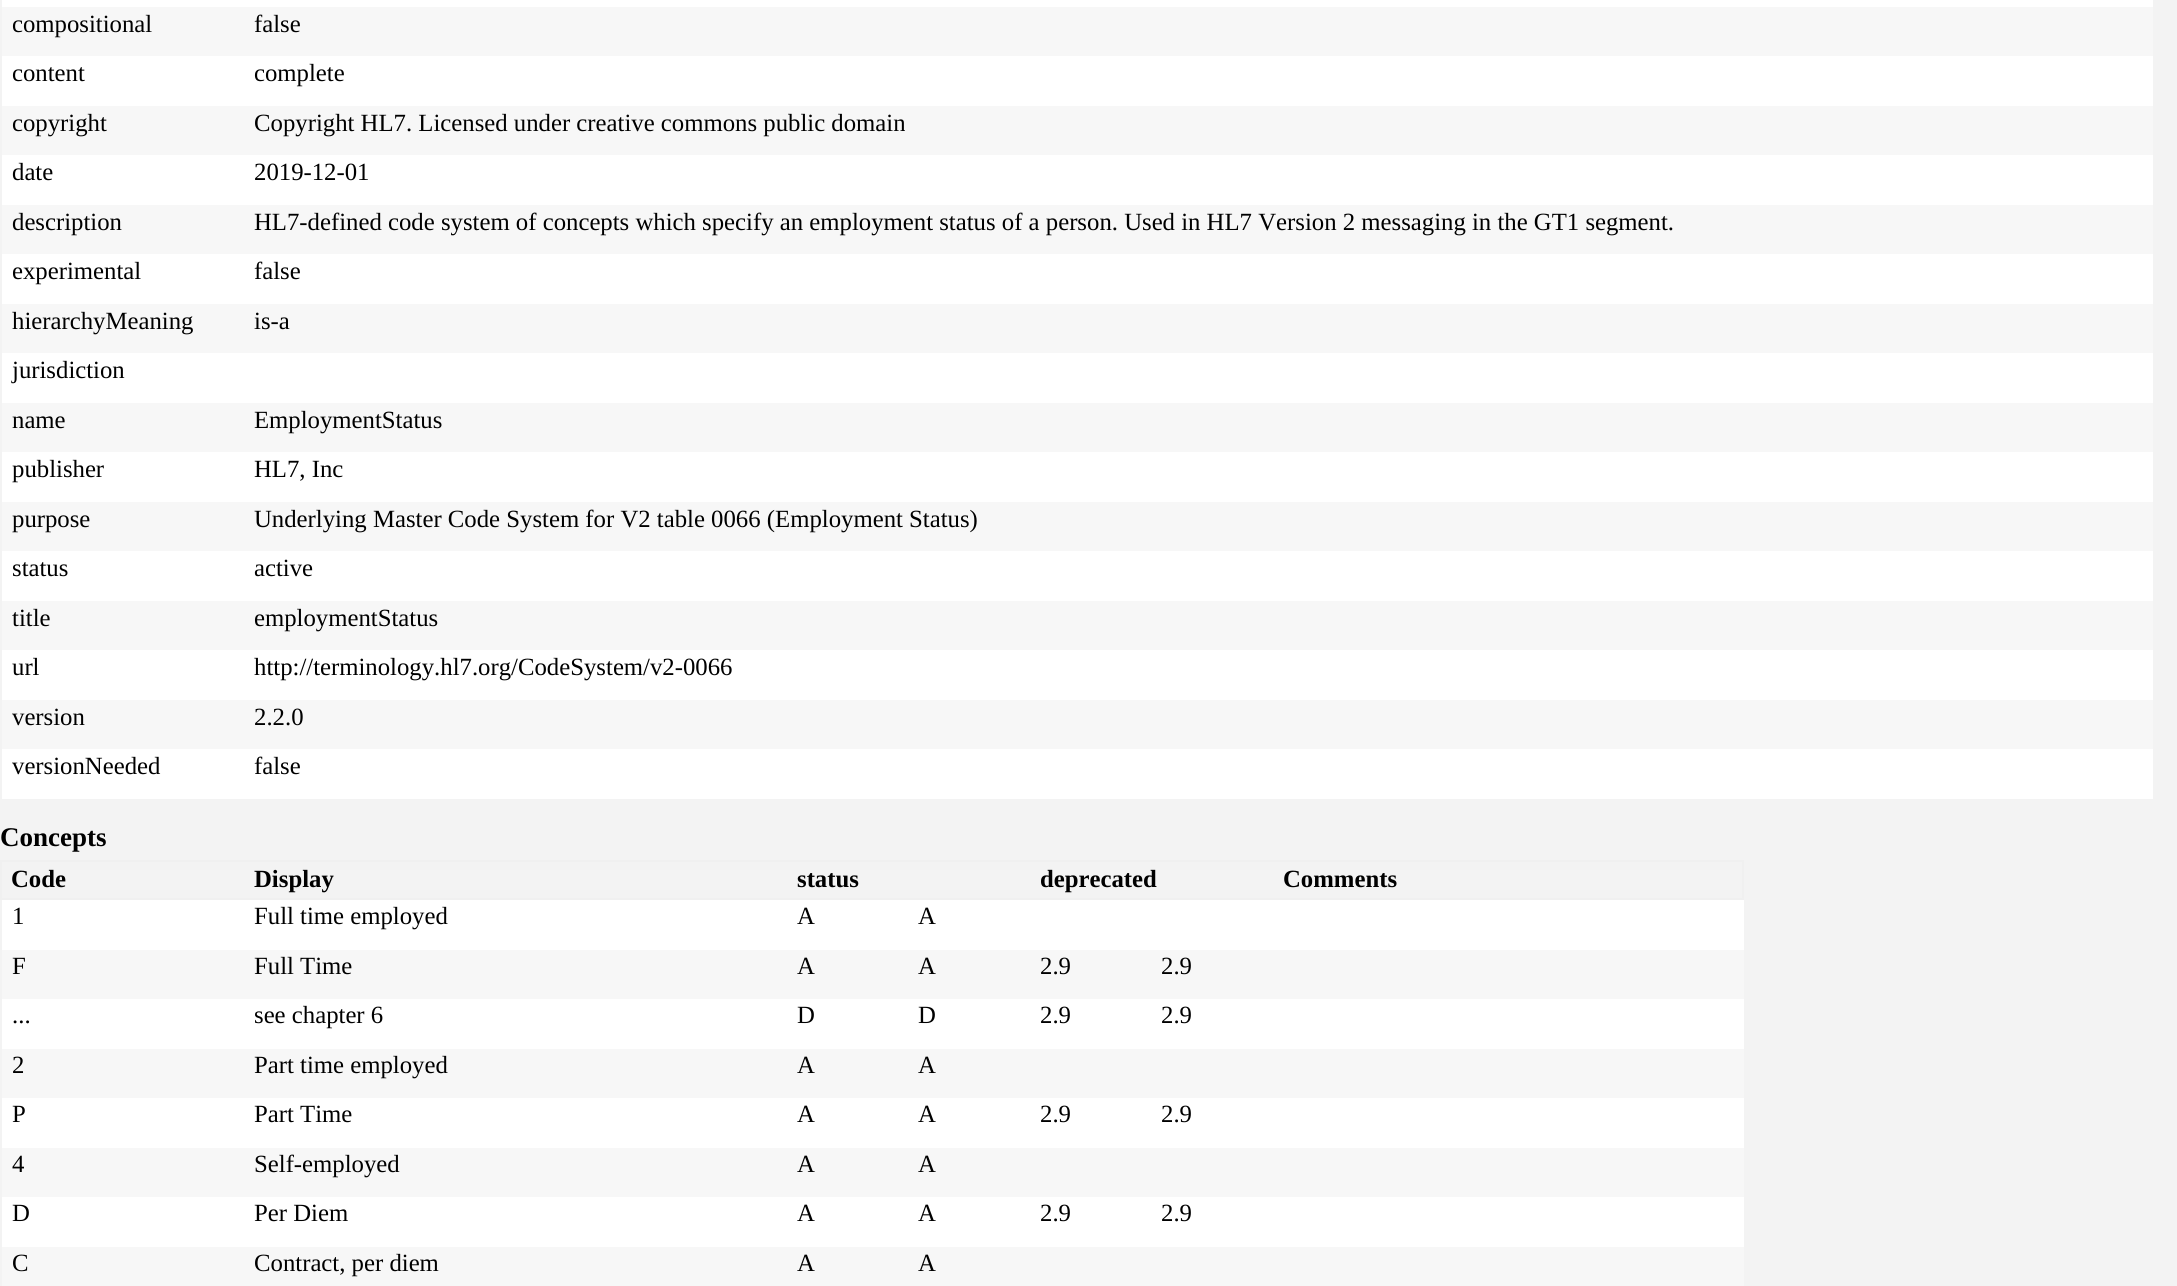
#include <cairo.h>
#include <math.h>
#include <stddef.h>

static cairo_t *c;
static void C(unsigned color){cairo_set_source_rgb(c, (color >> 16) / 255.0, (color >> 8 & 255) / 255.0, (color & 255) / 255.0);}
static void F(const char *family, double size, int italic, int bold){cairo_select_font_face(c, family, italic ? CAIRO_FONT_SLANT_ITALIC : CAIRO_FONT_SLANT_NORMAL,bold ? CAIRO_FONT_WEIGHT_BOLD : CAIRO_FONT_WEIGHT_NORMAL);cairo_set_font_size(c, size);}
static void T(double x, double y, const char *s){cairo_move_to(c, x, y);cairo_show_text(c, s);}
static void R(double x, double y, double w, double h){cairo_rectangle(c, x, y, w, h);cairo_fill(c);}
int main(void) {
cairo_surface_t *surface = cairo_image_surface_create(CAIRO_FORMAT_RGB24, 2177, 1286);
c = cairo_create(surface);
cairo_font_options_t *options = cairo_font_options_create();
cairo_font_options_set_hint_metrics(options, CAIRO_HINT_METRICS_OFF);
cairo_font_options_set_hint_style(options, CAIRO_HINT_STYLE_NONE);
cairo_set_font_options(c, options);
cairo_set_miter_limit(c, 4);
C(0xf3f3f3);
cairo_paint(c);
C(0xffffff);
R(2,0,2151,7);
C(0xf7f7f7);
R(2,7,2151,49);
F("Liberation Serif",24.75,0,0);
C(0x000000);
T(12,32,"compositional");
T(254,32,"false");
C(0xffffff);
R(2,56,2151,50);
C(0x000000);
T(12,81,"content");
T(254,81,"complete");
C(0xf7f7f7);
R(2,106,2151,49);
C(0x000000);
T(12,131,"copyright");
T(254,131,"Copyright HL7. Licensed under creative commons public domain");
C(0xffffff);
R(2,155,2151,50);
C(0x000000);
T(12,180,"date");
T(254,180,"2019-12-01");
C(0xf7f7f7);
R(2,205,2151,49);
C(0x000000);
T(12,230,"description");
T(254,230,"HL7-defined code system of concepts which specify an employment status of a person. Used in HL7 Version 2 messaging in the GT1 segment.");
C(0xffffff);
R(2,254,2151,50);
C(0x000000);
T(12,279,"experimental");
T(254,279,"false");
C(0xf7f7f7);
R(2,304,2151,49);
C(0x000000);
T(12,329,"hierarchyMeaning");
T(254,329,"is-a");
C(0xffffff);
R(2,353,2151,50);
C(0x000000);
T(12,378,"jurisdiction");
C(0xf7f7f7);
R(2,403,2151,49);
C(0x000000);
T(12,428,"name");
T(254,428,"EmploymentStatus");
C(0xffffff);
R(2,452,2151,50);
C(0x000000);
T(12,477,"publisher");
T(254,477,"HL7, Inc");
C(0xf7f7f7);
R(2,502,2151,49);
C(0x000000);
T(12,527,"purpose");
T(254,527,"Underlying Master Code System for V2 table 0066 (Employment Status)");
C(0xffffff);
R(2,551,2151,50);
C(0x000000);
T(12,576,"status");
T(254,576,"active");
C(0xf7f7f7);
R(2,601,2151,49);
C(0x000000);
T(12,626,"title");
T(254,626,"employmentStatus");
C(0xffffff);
R(2,650,2151,50);
C(0x000000);
T(12,675,"url");
T(254,675,"http://terminology.hl7.org/CodeSystem/v2-0066");
C(0xf7f7f7);
R(2,700,2151,49);
C(0x000000);
T(12,725,"version");
T(254,725,"2.2.0");
C(0xffffff);
R(2,749,2151,50);
C(0x000000);
T(12,774,"versionNeeded");
T(254,774,"false");
F("Liberation Serif",27,0,1);
T(0,846,"Concepts");
C(0xf0f0f0);
R(0,860,1744,2);
R(1742,860,2,40);
R(0,898,1744,2);
R(0,860,2,40);
F("Liberation Serif",24.75,0,1);
C(0x000000);
T(11,887,"Code");
T(254,887,"Display");
T(797,887,"status");
T(1040,887,"deprecated");
T(1283,887,"Comments");
C(0xffffff);
R(2,900,1742,50);
F("Liberation Serif",24.75,0,0);
C(0x000000);
T(12,924,"1");
T(254,924,"Full time employed");
T(797,924,"A");
T(918,924,"A");
C(0xf7f7f7);
R(2,950,1742,49);
C(0x000000);
T(12,974,"F");
T(254,974,"Full Time");
T(797,974,"A");
T(918,974,"A");
T(1040,974,"2.9");
T(1161,974,"2.9");
C(0xffffff);
R(2,999,1742,50);
C(0x000000);
T(12,1023,"...");
T(254,1023,"see chapter 6");
T(797,1023,"D");
T(918,1023,"D");
T(1040,1023,"2.9");
T(1161,1023,"2.9");
C(0xf7f7f7);
R(2,1049,1742,49);
C(0x000000);
T(12,1073,"2");
T(254,1073,"Part time employed");
T(797,1073,"A");
T(918,1073,"A");
C(0xffffff);
R(2,1098,1742,50);
C(0x000000);
T(12,1122,"P");
T(254,1122,"Part Time");
T(797,1122,"A");
T(918,1122,"A");
T(1040,1122,"2.9");
T(1161,1122,"2.9");
C(0xf7f7f7);
R(2,1148,1742,49);
C(0x000000);
T(12,1172,"4");
T(254,1172,"Self-employed");
T(797,1172,"A");
T(918,1172,"A");
C(0xffffff);
R(2,1197,1742,50);
C(0x000000);
T(12,1221,"D");
T(254,1221,"Per Diem");
T(797,1221,"A");
T(918,1221,"A");
T(1040,1221,"2.9");
T(1161,1221,"2.9");
C(0xf7f7f7);
R(2,1247,1742,39);
C(0x000000);
T(12,1271,"C");
T(254,1271,"Contract, per diem");
T(797,1271,"A");
T(918,1271,"A");
cairo_surface_write_to_png(surface, "o.png");
cairo_font_options_destroy(options);
cairo_destroy(c);
cairo_surface_destroy(surface);
return 0;
}
